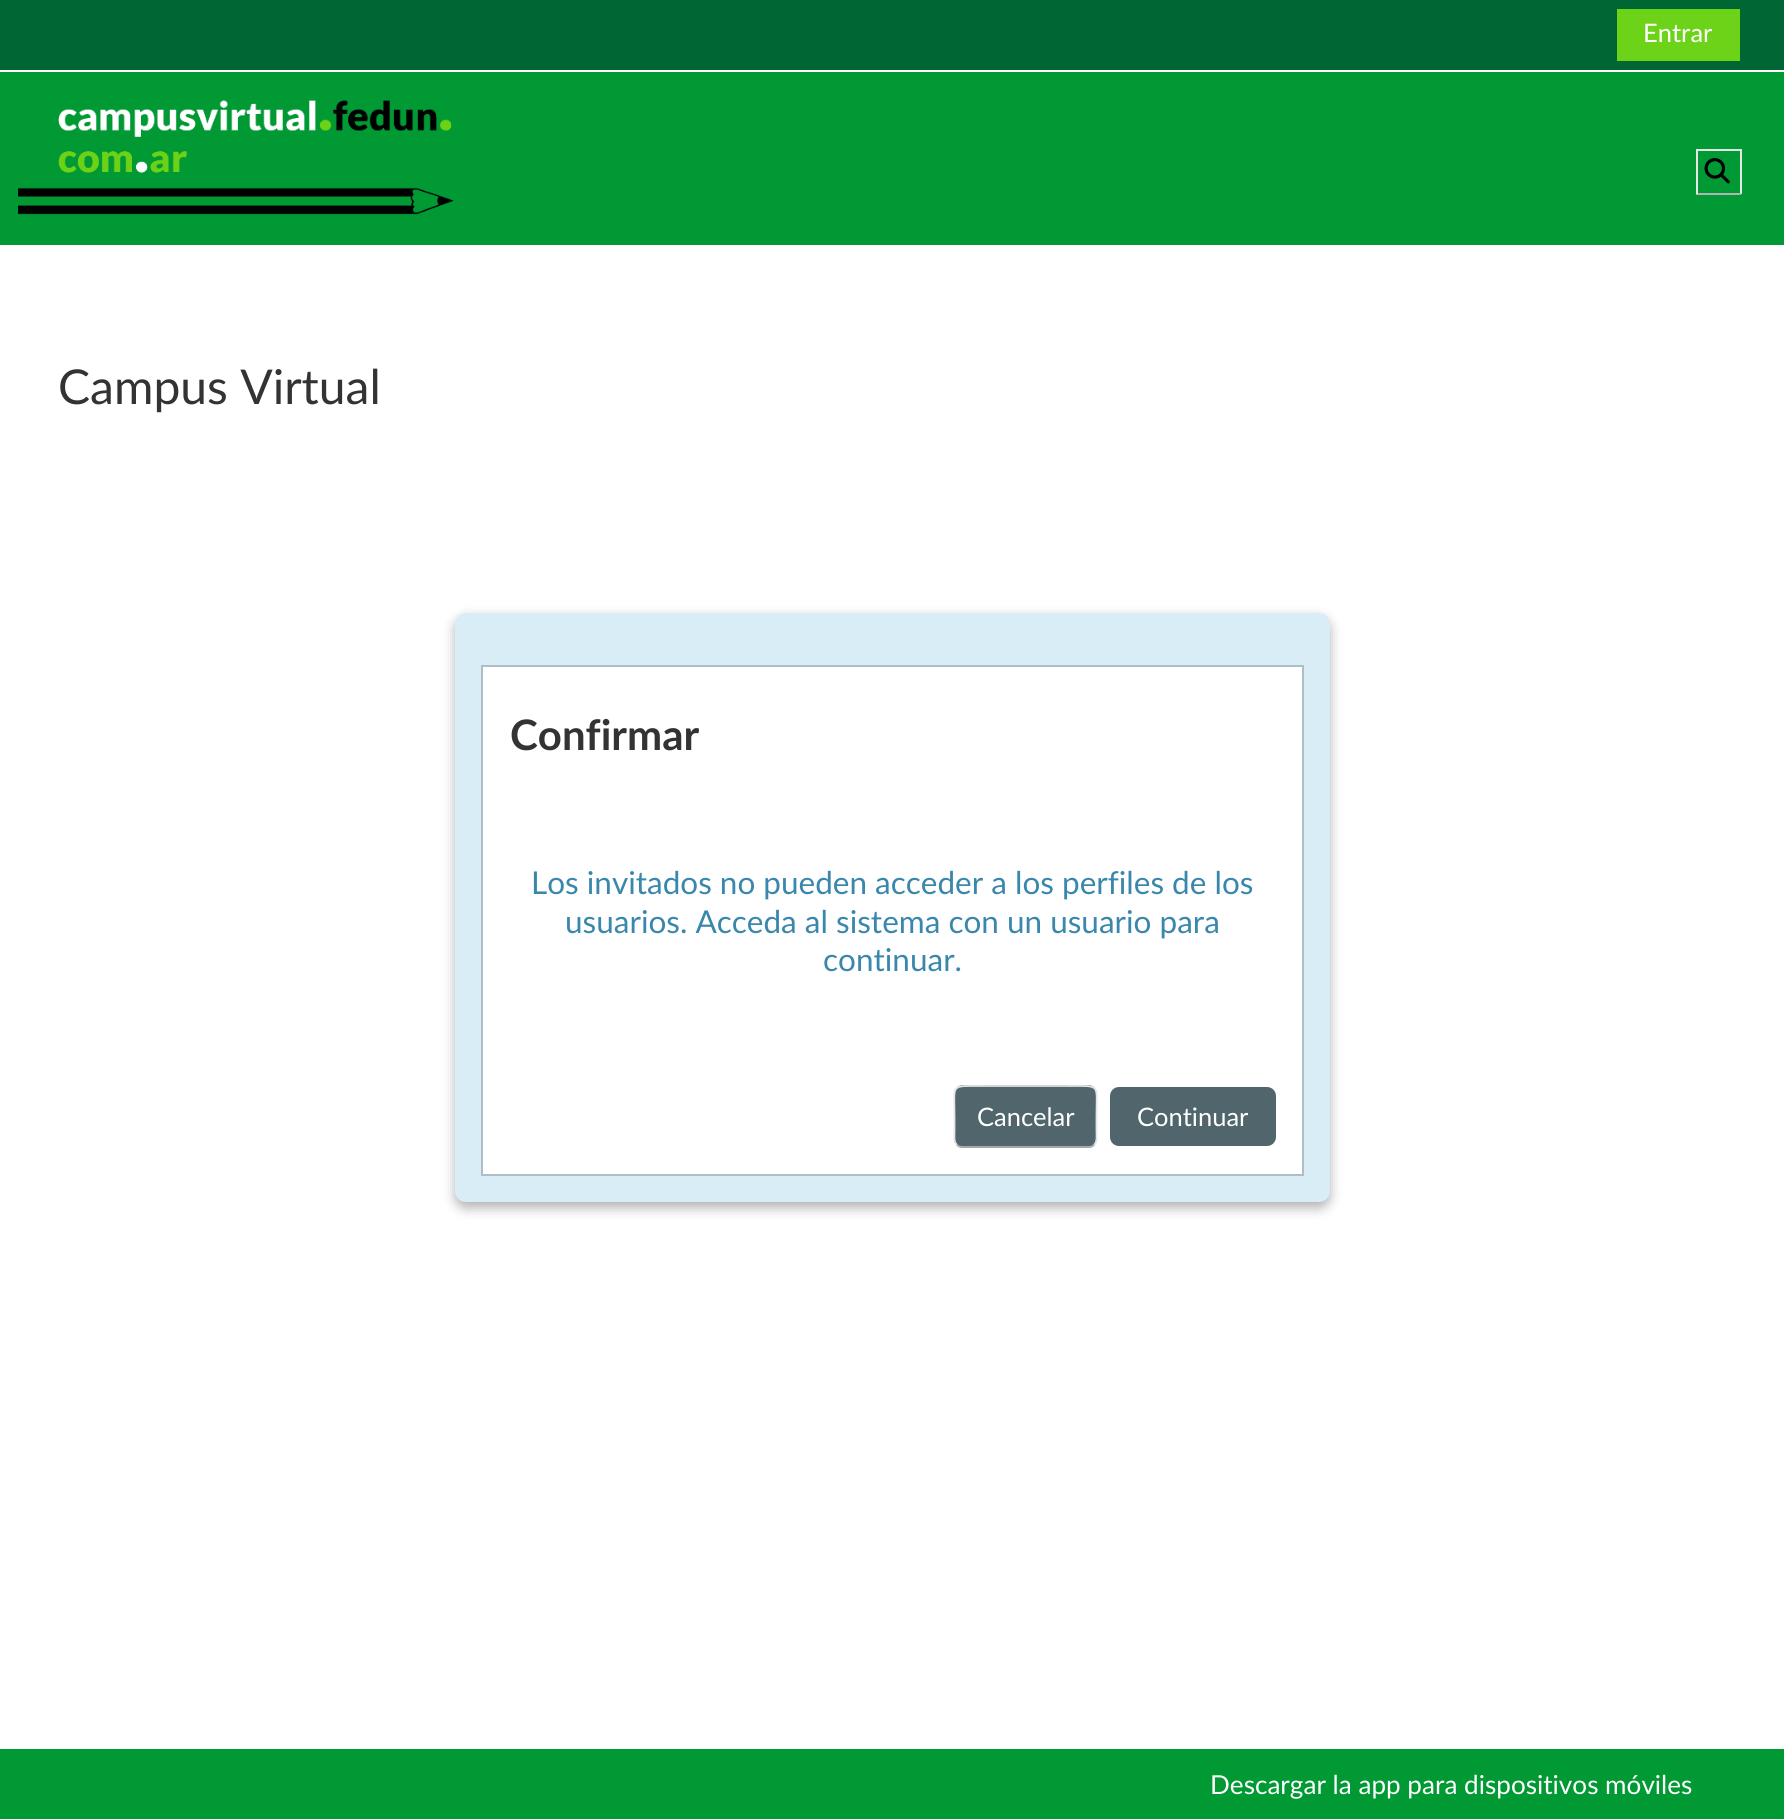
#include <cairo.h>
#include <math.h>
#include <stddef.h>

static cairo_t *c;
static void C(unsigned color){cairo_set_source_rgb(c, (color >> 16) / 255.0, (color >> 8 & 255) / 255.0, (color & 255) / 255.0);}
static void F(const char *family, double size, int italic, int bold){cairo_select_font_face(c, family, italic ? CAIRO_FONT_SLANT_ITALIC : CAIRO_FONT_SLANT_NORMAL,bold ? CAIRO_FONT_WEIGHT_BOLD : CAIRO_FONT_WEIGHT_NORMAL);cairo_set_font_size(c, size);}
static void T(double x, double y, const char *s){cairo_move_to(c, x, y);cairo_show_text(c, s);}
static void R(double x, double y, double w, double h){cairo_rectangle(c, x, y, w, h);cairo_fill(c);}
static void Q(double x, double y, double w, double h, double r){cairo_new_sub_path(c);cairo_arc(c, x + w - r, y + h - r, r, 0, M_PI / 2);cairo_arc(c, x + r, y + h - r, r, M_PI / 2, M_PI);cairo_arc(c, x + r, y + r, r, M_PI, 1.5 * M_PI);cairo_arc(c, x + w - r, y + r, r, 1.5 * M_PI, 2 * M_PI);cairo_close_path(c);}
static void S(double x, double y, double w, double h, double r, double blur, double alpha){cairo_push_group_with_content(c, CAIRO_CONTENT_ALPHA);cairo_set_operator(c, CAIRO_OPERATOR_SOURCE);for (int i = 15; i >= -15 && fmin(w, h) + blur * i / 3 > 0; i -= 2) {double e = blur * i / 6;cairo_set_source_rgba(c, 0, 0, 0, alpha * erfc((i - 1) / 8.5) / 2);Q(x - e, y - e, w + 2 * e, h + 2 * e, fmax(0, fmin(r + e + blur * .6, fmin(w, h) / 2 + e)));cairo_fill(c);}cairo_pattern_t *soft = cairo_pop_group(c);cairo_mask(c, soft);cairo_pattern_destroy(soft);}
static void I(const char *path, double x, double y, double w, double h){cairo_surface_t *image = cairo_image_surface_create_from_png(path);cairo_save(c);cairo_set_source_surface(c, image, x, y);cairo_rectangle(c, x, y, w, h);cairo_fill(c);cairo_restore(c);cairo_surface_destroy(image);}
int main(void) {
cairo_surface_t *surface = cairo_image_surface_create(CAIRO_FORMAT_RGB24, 1784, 1819);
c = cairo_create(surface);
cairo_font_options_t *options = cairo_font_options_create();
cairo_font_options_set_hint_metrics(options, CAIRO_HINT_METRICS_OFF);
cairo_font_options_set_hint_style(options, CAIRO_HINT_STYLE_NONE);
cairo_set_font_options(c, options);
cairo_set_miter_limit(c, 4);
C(0xffffff);
cairo_paint(c);
C(0x009933);
R(0,72,1784,173);
C(0x006633);
R(0,0,1784,70);
C(0x6dd319);
R(1617,9,123,52);
F("Lato",25.5,0,0);
C(0xffffff);
T(1643,42,"Entrar");
I("1.png",18,100,436,115);
C(0xe6e6e6);
R(1696,149,45,2);
R(1740,149,2,45);
C(0xb3b3b3);
R(1696,193,45,2);
C(0xe6e6e6);
R(1696,149,2,45);
I("2.png",1704,158,26,26);
F("Lato",48,0,0);
C(0x333333);
T(58,404,"Campus Virtual");
C(0x000000);
S(455,618,875,590,11,6,.3);
C(0xd9edf7);
Q(455,613,875,589,11);
cairo_fill(c);
C(0xffffff);
cairo_rectangle(c,482,666,821,509);
cairo_fill_preserve(c);
C(0xaebec6);
cairo_stroke(c);
F("Lato",42,0,1);
C(0x333333);
T(510,750,"Confirmar");
F("Lato",31.5,0,0);
C(0x3a87ad);
T(531,894,"Los invitados no pueden acceder a los perfiles de los");
T(565,933,"usuarios. Acceda al sistema con un usuario para");
T(823,971,"continuar.");
C(0x51666c);
Q(954,1085,143,63,9);
cairo_fill(c);
cairo_new_path(c);
cairo_move_to(c,1094,1145);
cairo_curve_to(c,1092.5,1146.5,1090.5,1147,1088.5,1147);
cairo_line_to(c,962.5,1147);
cairo_curve_to(c,960.5,1147,958.5,1146.5,957,1145);
C(0xb3b3b3);
cairo_set_line_width(c,1.8);
cairo_stroke(c);
cairo_new_path(c);
cairo_move_to(c,957,1145);
cairo_curve_to(c,953.5,1141.5,954.5,1136,954.5,1131.5);
cairo_line_to(c,954.5,1116.5);
cairo_curve_to(c,954.5,1083,949.5,1086,983.5,1086);
cairo_line_to(c,1067.5,1086);
cairo_curve_to(c,1101.5,1086,1096.5,1083,1096.5,1116.5);
cairo_line_to(c,1096.5,1131.5);
cairo_curve_to(c,1096.5,1136,1097.5,1141.5,1094,1145);
C(0xe6e6e6);
cairo_stroke(c);
F("Lato",25.5,0,0);
C(0xffffff);
T(977,1126,"Cancelar");
C(0x51666c);
Q(1110,1087,166,59,9);
cairo_fill(c);
C(0xffffff);
T(1137,1126,"Continuar");
C(0x009933);
R(0,1749,1784,70);
F("Lato",26.1,0,0);
C(0xffffff);
T(1210,1794,"Descargar la app para dispositivos móviles");
cairo_surface_write_to_png(surface, "o.png");
cairo_font_options_destroy(options);
cairo_destroy(c);
cairo_surface_destroy(surface);
return 0;
}
